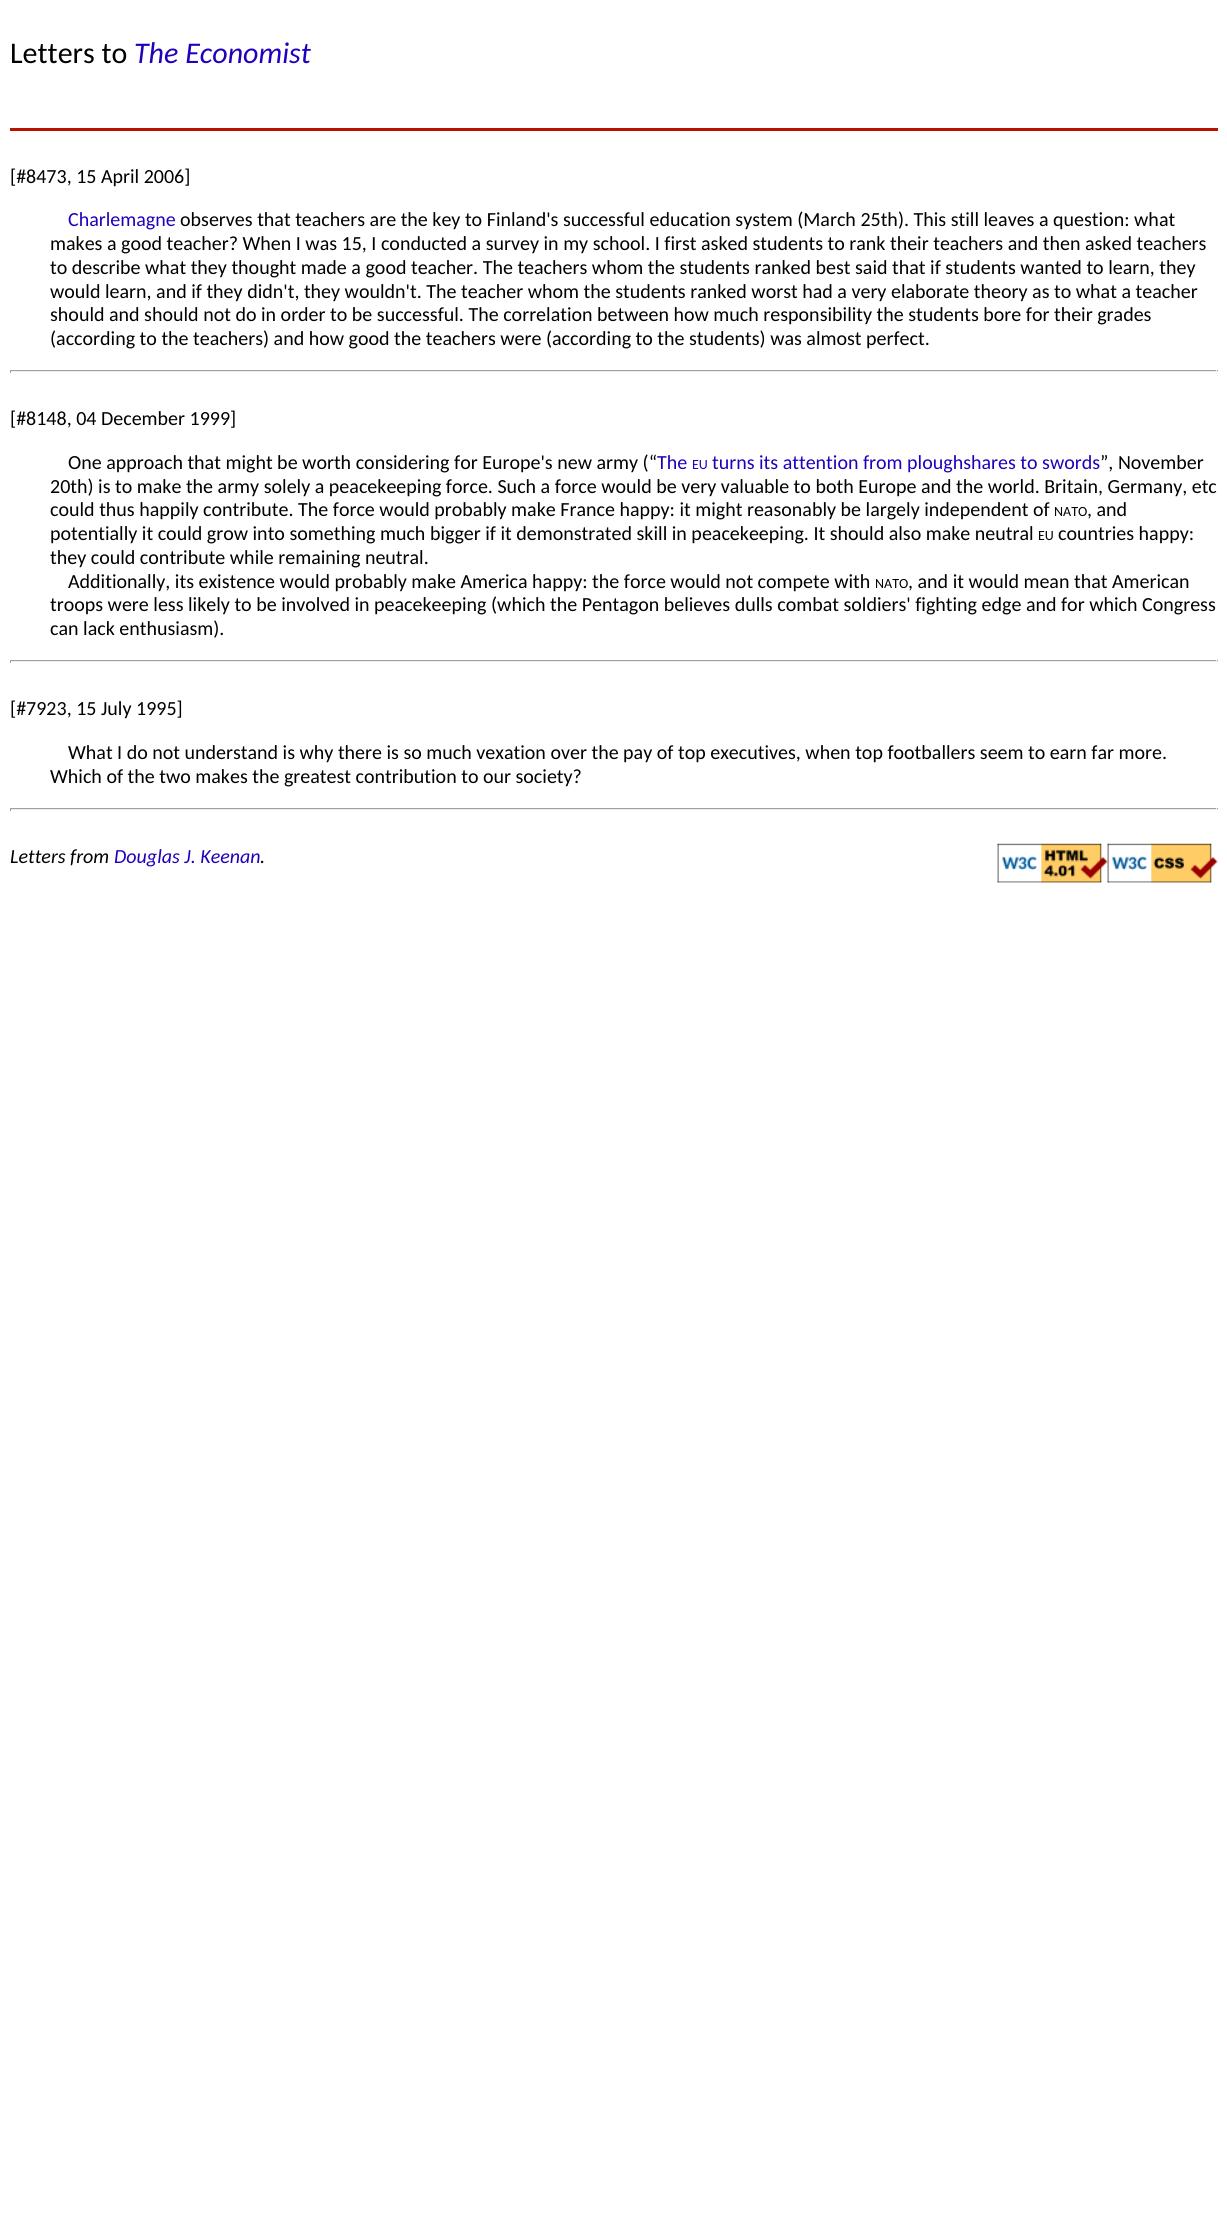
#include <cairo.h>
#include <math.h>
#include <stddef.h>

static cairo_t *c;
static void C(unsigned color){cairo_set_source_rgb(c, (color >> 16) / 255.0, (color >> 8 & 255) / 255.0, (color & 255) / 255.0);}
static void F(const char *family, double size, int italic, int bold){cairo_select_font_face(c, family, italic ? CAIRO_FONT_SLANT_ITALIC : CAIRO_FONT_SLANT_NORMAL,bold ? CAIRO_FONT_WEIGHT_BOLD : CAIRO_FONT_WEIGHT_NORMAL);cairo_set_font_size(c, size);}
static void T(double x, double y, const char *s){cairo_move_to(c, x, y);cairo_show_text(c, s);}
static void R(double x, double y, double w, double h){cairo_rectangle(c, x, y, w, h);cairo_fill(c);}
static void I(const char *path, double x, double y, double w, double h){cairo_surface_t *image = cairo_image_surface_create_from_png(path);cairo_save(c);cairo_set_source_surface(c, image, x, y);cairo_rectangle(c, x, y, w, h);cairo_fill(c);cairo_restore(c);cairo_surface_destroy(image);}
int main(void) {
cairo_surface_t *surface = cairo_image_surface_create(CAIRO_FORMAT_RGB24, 1227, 2232);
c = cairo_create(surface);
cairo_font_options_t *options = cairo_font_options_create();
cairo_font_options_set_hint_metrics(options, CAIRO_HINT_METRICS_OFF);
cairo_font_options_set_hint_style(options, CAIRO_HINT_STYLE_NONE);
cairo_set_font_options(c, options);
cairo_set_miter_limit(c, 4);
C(0xffffff);
cairo_paint(c);
F("Carlito",30,0,0);
C(0x000000);
T(10,63,"Letters to");
F("Carlito",30,1,0);
C(0x2200bb);
T(134,63,"The Economist");
C(0xbb1100);
R(10,128,1208,3);
F("Carlito",20,0,0);
C(0x000000);
T(10,183,"[#8473, 15 April 2006]");
C(0x2200bb);
T(68,226,"Charlemagne");
C(0x000000);
T(180,226,"observes that teachers are the key to Finland's successful education system (March 25th). This still leaves a question: what");
T(50,250,"makes a good teacher? When I was 15, I conducted a survey in my school. I first asked students to rank their teachers and then asked teachers");
T(50,274,"to describe what they thought made a good teacher. The teachers whom the students ranked best said that if students wanted to learn, they");
T(50,298,"would learn, and if they didn't, they wouldn't. The teacher whom the students ranked worst had a very elaborate theory as to what a teacher");
T(50,321,"should and should not do in order to be successful. The correlation between how much responsibility the students bore for their grades");
T(50,345,"(according to the teachers) and how good the teachers were (according to the students) was almost perfect.");
C(0x9f9f9f);
R(10,370,1208,1);
C(0xeeeeee);
R(1216,370,1,3);
R(10,371,1208,1);
C(0x9f9f9f);
R(10,370,1,3);
C(0x000000);
T(10,425,"[#8148, 04 December 1999]");
T(68,469,"One approach that might be worth considering for Europe's new army (“");
C(0x2200bb);
T(657,469,"The");
F("Carlito",14,0,0);
T(692,469,"EU");
F("Carlito",20,0,0);
T(712,469,"turns its attention from ploughshares to swords");
C(0x000000);
T(1100,469,"”, November");
T(50,493,"20th) is to make the army solely a peacekeeping force. Such a force would be very valuable to both Europe and the world. Britain, Germany, etc");
T(50,516,"could thus happily contribute. The force would probably make France happy: it might reasonably be largely independent of");
F("Carlito",14,0,0);
T(1054,516,"NATO");
F("Carlito",20,0,0);
T(1087,516,", and");
T(50,540,"potentially it could grow into something much bigger if it demonstrated skill in peacekeeping. It should also make neutral");
F("Carlito",14,0,0);
T(1038,540,"EU");
F("Carlito",20,0,0);
T(1058,540,"countries happy:");
T(50,564,"they could contribute while remaining neutral.");
T(68,588,"Additionally, its existence would probably make America happy: the force would not compete with");
F("Carlito",14,0,0);
T(875,588,"NATO");
F("Carlito",20,0,0);
T(908,588,", and it would mean that American");
T(50,611,"troops were less likely to be involved in peacekeeping (which the Pentagon believes dulls combat soldiers' fighting edge and for which Congress");
T(50,635,"can lack enthusiasm).");
C(0x9f9f9f);
R(10,660,1208,1);
C(0xeeeeee);
R(1216,660,1,3);
R(10,661,1208,1);
C(0x9f9f9f);
R(10,660,1,3);
C(0x000000);
T(10,715,"[#7923, 15 July 1995]");
T(68,759,"What I do not understand is why there is so much vexation over the pay of top executives, when top footballers seem to earn far more.");
T(50,783,"Which of the two makes the greatest contribution to our society?");
C(0x9f9f9f);
R(10,808,1208,1);
C(0xeeeeee);
R(1216,808,1,3);
R(10,809,1208,1);
C(0x9f9f9f);
R(10,808,1,3);
F("Carlito",20,1,0);
C(0x000000);
T(10,863,"Letters from");
C(0x2200bb);
T(114,863,"Douglas J. Keenan");
C(0x000000);
T(260,863,".");
I("2.png",1107,843,111,40);
I("1.png",997,843,111,40);
cairo_surface_write_to_png(surface, "o.png");
cairo_font_options_destroy(options);
cairo_destroy(c);
cairo_surface_destroy(surface);
return 0;
}
